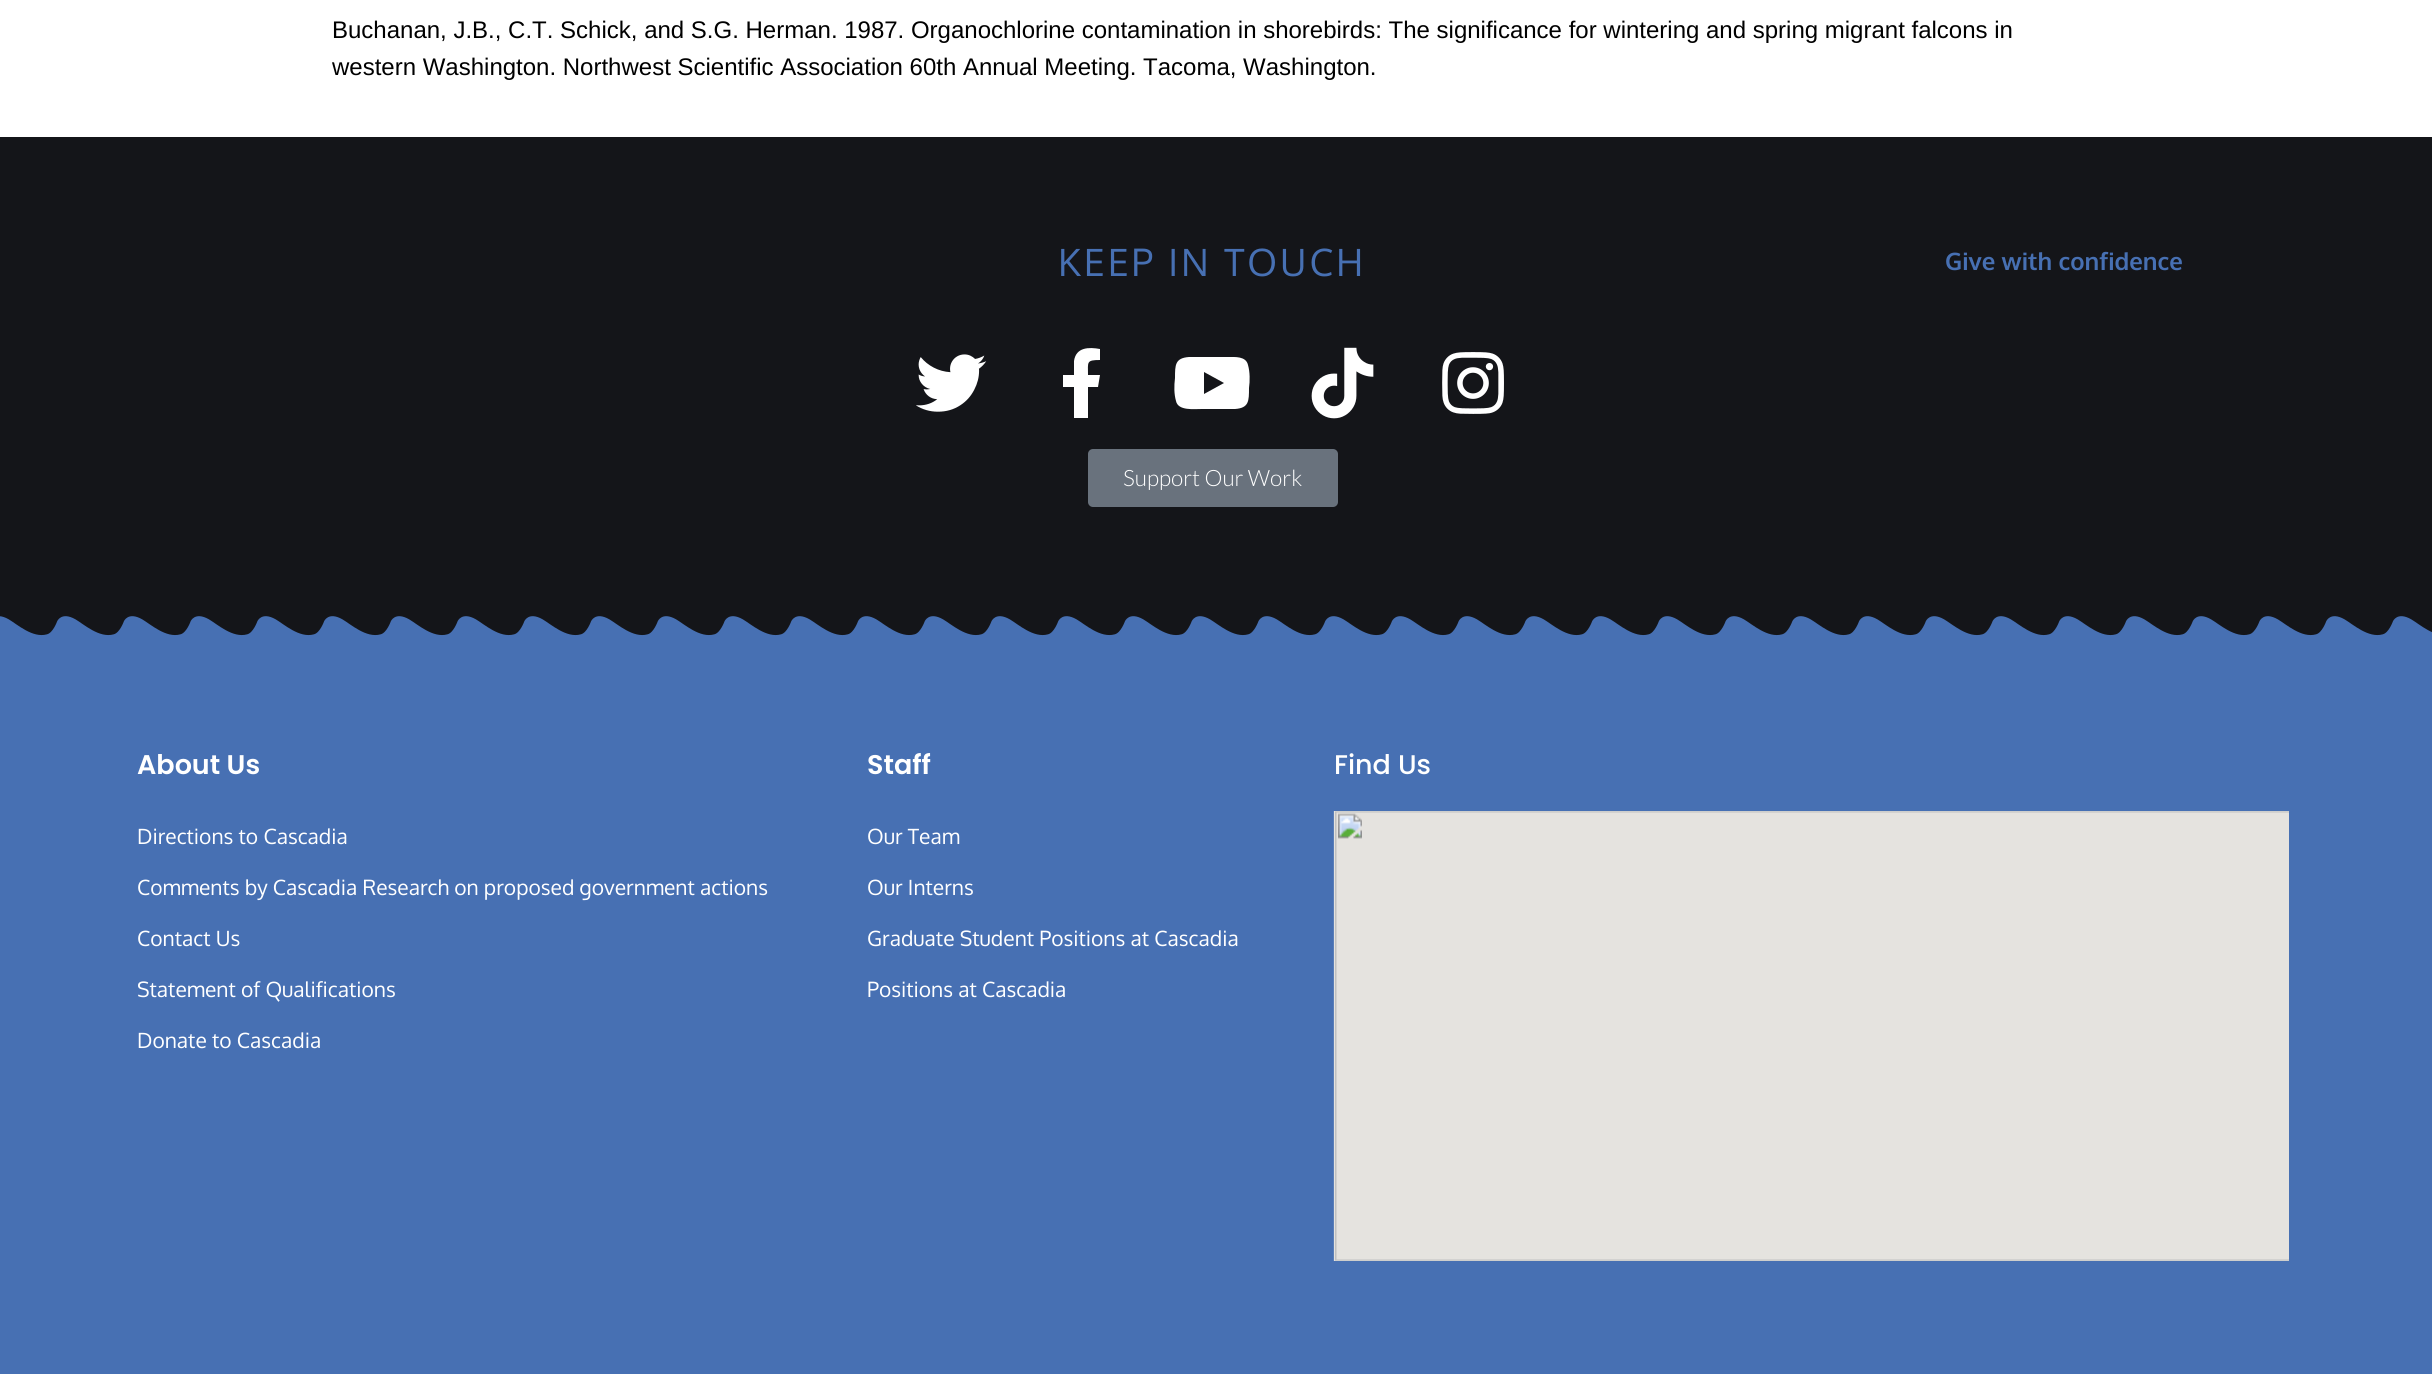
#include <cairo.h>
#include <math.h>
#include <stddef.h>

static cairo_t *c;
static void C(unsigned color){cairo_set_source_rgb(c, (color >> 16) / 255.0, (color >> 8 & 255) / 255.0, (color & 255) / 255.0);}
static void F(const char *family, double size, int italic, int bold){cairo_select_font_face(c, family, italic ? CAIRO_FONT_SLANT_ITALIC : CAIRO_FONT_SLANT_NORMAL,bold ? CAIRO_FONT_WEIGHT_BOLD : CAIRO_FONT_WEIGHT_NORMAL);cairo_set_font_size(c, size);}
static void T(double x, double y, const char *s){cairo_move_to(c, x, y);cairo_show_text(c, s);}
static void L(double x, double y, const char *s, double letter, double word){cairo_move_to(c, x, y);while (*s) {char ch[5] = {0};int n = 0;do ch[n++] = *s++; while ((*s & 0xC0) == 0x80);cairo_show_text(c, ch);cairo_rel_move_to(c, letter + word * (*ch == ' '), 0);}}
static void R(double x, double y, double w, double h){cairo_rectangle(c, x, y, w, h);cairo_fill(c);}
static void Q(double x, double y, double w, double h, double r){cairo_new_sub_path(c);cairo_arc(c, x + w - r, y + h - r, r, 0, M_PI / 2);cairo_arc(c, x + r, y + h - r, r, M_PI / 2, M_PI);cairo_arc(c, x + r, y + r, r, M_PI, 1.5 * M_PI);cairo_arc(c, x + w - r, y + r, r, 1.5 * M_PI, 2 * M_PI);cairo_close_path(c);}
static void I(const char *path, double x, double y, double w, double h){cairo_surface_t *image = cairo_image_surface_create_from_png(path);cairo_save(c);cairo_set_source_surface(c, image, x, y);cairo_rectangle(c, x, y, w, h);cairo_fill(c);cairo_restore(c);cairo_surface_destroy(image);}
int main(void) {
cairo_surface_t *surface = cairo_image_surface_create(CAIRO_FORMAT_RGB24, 2432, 1374);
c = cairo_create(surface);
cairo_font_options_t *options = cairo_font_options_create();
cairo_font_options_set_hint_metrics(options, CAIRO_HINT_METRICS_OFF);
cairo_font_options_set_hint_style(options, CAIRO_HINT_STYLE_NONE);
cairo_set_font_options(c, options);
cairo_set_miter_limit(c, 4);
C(0xffffff);
cairo_paint(c);
F("Liberation Sans",24,0,0);
C(0x000000);
T(332,38,"Buchanan, J.B., C.T. Schick, and S.G. Herman. 1987. Organochlorine contamination in shorebirds: The significance for wintering and spring migrant falcons in");
T(332,75,"western Washington. Northwest Scientific Association 60th Annual Meeting. Tacoma, Washington.");
C(0x141519);
R(0,137,2432,475);
F("Oxygen",37.5,0,0);
C(0x4770b3);
L(1058,276,"KEEP IN TOUCH",3,0);
I("1.png",916,354,71,58);
C(0xffffff);
cairo_new_path(c);
cairo_move_to(c,1098,387);
cairo_line_to(c,1088,387);
cairo_line_to(c,1088,418);
cairo_line_to(c,1074,418);
cairo_line_to(c,1074,387);
cairo_line_to(c,1063,387);
cairo_line_to(c,1063,375);
cairo_line_to(c,1074,375);
cairo_line_to(c,1074,361);
cairo_curve_to(c,1076,347,1089,347,1100,349);
cairo_line_to(c,1100,360);
cairo_curve_to(c,1086,360,1088,362,1088,375);
cairo_line_to(c,1100,375);
cairo_close_path(c);
cairo_fill(c);
cairo_new_path(c);
cairo_move_to(c,1248,365);
cairo_curve_to(c,1250,372,1250,381,1249,388);
cairo_curve_to(c,1249,401,1249,408,1235,409);
cairo_line_to(c,1202,409);
cairo_curve_to(c,1194,409,1178,411,1176,401);
cairo_curve_to(c,1174,394,1174,386,1175,378);
cairo_curve_to(c,1175,365,1175,358,1189,357);
cairo_line_to(c,1206,357);
cairo_line_to(c,1228,357);
cairo_curve_to(c,1235,357,1246,356,1248,365);
cairo_close_path(c);
cairo_move_to(c,1204,394);
cairo_line_to(c,1224,383);
cairo_line_to(c,1204,372);
cairo_close_path(c);
cairo_fill(c);
I("2.png",1311,347,63,72);
I("3.png",1442,352,62,62);
C(0x69727d);
Q(1088,449,250,58,5);
cairo_fill(c);
F("Lato Light",22.5,0,0);
C(0xffffff);
T(1123,486,"Support Our Work");
F("Oxygen",24,0,1);
C(0x4770b3);
T(1945,270,"Give with confidence");
R(0,616,2432,758);
I("4.png",0,612,2432,24);
F("Poppins SemiBold",27,0,0);
C(0xffffff);
T(137,774,"About Us");
F("Oxygen",21,0,0);
T(137,844,"Directions to Cascadia");
T(137,895,"Comments by Cascadia Research on proposed government actions");
T(137,946,"Contact Us");
T(137,997,"Statement of Qualifications");
T(137,1048,"Donate to Cascadia");
F("Poppins SemiBold",27,0,0);
T(867,774,"Staff");
F("Oxygen",21,0,0);
T(867,844,"Our Team");
T(867,895,"Our Interns");
T(867,946,"Graduate Student Positions at Cascadia");
T(867,997,"Positions at Cascadia");
F("Poppins Medium",27,0,0);
T(1334,774,"Find Us");
I("5.png",1333,811,956,450);
cairo_surface_write_to_png(surface, "o.png");
cairo_font_options_destroy(options);
cairo_destroy(c);
cairo_surface_destroy(surface);
return 0;
}
